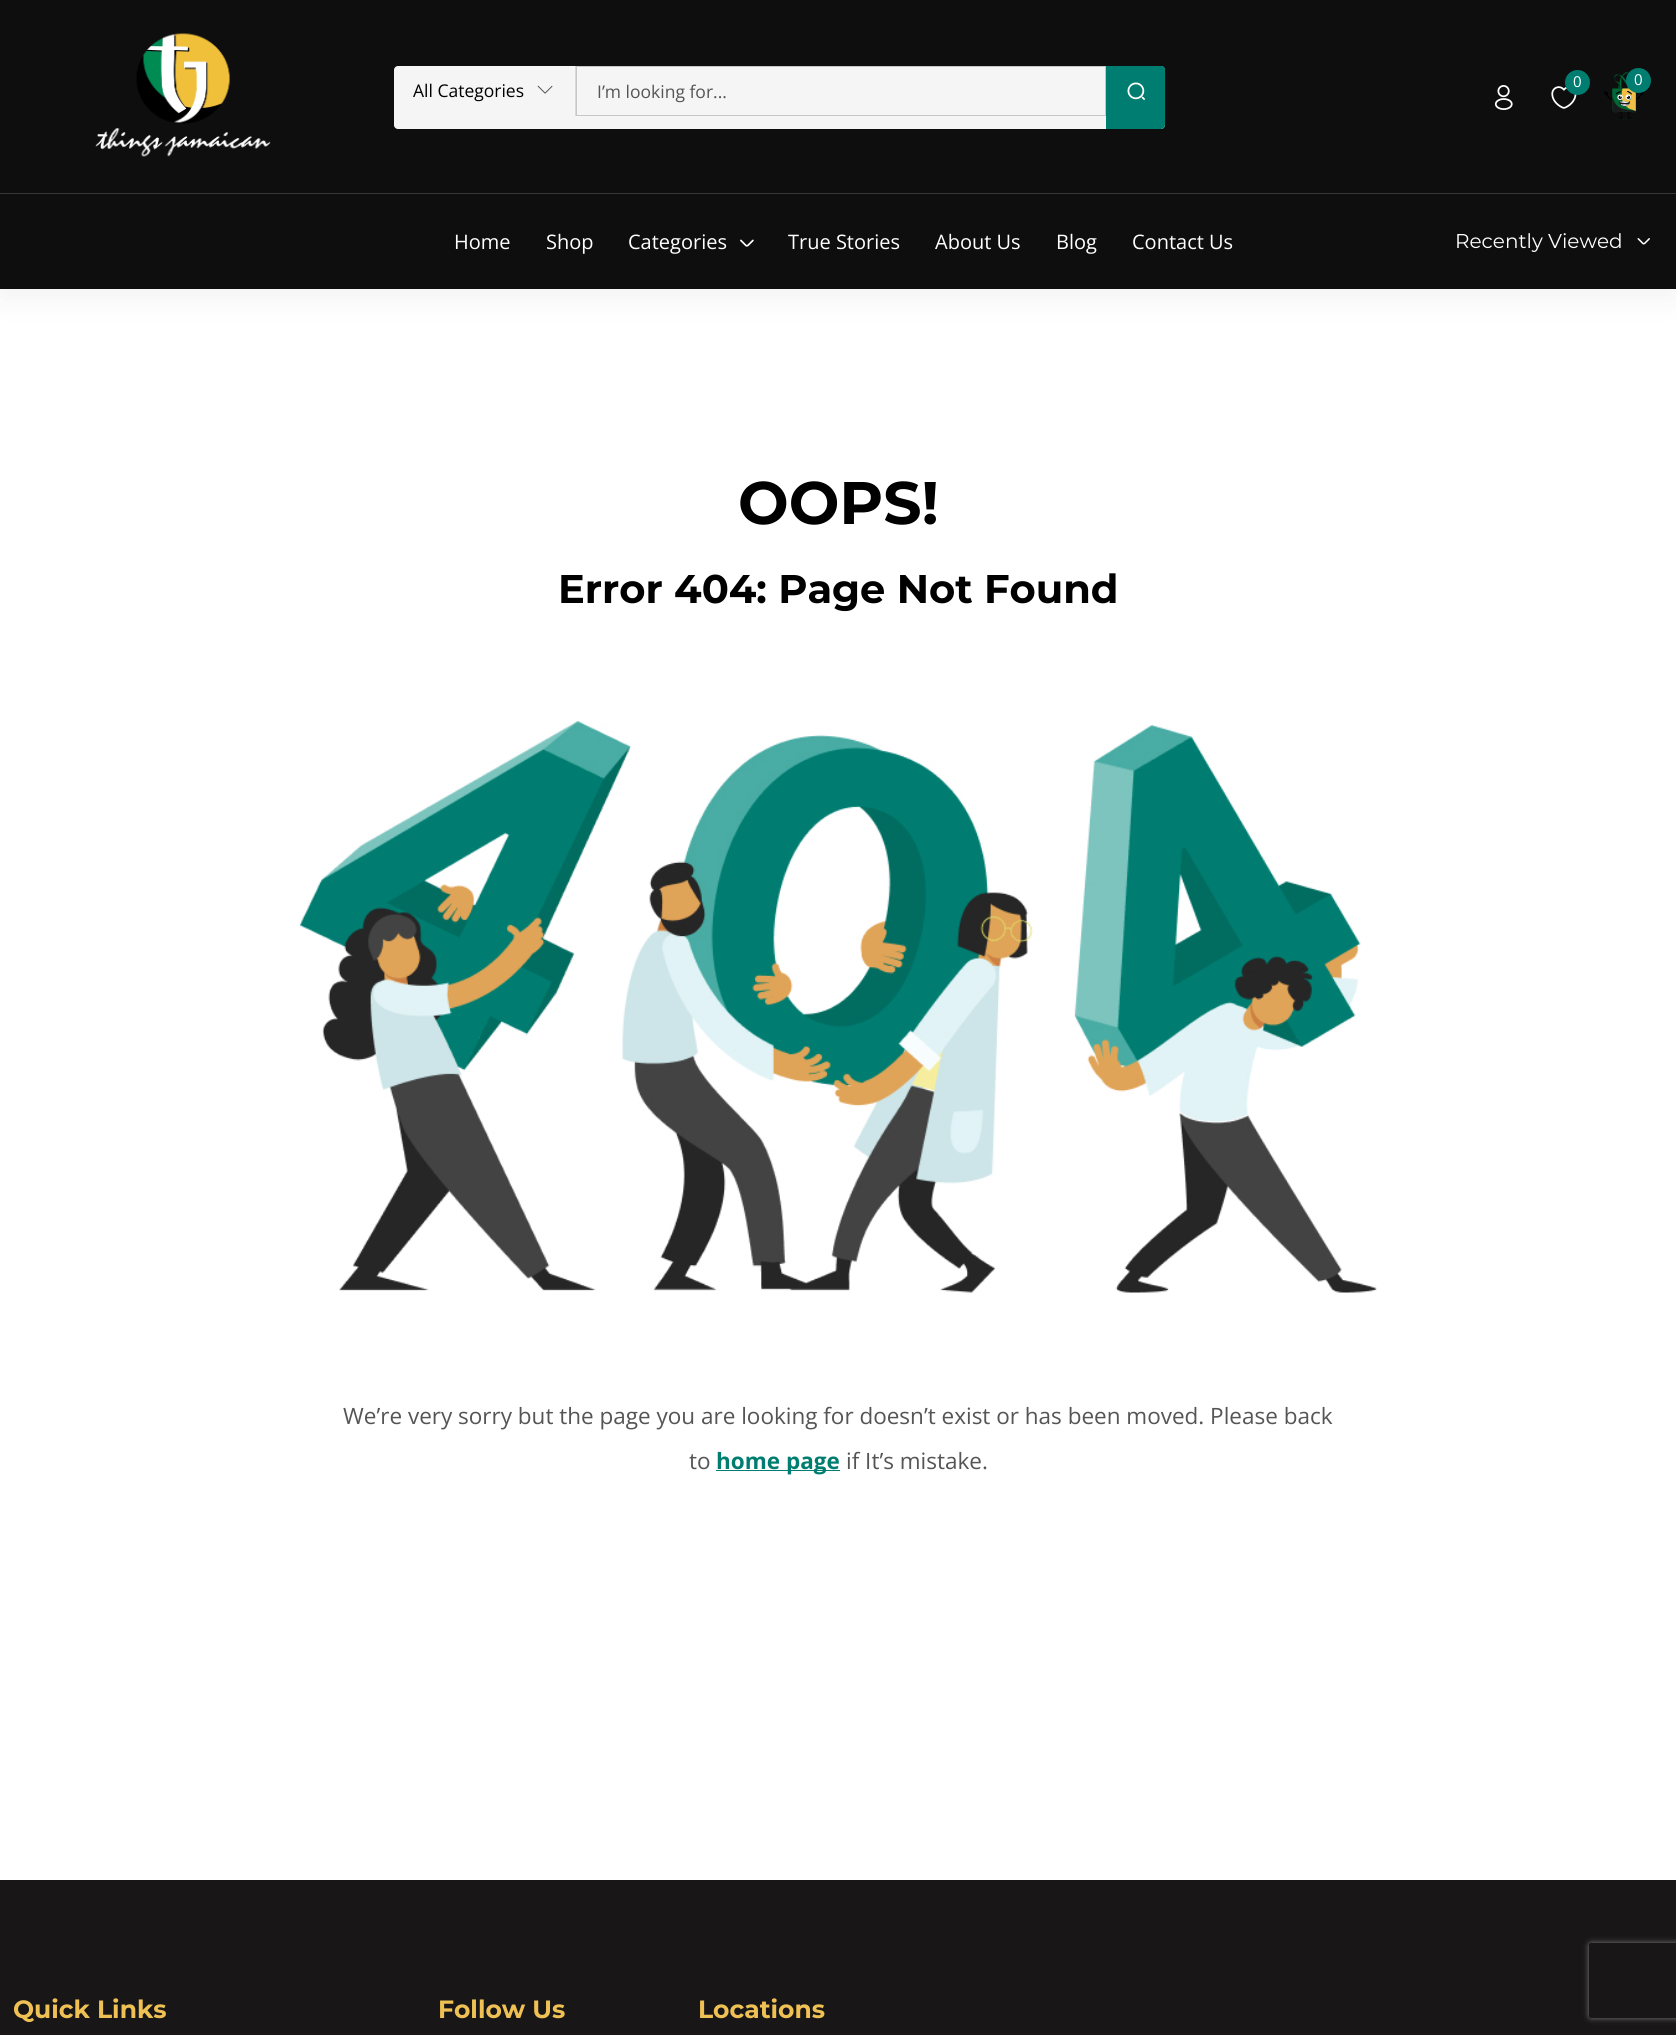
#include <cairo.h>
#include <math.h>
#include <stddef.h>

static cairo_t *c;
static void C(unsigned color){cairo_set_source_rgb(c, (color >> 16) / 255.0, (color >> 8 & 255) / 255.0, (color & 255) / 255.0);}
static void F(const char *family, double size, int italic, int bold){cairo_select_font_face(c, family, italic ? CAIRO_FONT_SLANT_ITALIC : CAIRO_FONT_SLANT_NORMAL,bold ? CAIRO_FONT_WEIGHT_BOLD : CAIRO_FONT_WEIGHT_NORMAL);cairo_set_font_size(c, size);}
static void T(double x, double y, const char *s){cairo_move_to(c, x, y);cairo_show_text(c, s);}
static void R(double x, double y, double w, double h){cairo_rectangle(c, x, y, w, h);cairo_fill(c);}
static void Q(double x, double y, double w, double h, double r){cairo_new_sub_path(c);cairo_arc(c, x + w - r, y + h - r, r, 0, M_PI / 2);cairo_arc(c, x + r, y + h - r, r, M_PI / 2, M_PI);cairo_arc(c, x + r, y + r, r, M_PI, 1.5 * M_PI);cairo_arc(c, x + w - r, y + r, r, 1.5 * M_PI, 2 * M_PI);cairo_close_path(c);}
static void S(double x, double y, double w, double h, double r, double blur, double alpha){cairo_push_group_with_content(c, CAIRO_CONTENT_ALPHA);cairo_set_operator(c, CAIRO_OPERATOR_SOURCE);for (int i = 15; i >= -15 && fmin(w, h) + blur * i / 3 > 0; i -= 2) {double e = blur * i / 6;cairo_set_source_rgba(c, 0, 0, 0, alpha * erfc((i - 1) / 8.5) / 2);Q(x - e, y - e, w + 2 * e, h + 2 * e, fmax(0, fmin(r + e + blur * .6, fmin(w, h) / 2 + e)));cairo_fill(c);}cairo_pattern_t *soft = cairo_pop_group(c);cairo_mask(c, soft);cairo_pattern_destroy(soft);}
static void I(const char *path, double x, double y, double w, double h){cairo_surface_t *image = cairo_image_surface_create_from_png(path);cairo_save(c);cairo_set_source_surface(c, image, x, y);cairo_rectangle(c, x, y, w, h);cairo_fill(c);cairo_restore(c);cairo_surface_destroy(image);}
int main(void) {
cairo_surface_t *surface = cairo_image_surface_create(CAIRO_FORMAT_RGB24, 1676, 2035);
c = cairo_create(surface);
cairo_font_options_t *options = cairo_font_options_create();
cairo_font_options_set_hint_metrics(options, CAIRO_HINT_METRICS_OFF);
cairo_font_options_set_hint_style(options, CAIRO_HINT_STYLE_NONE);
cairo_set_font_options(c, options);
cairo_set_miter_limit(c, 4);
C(0xffffff);
cairo_paint(c);
C(0x0e0e0e);
R(0,0,1676,193);
C(0x393939);
R(0,193,1676,1);
I("1.png",95,33,176,124);
I("2.png",1551,86,26,23);
C(0x007d71);
cairo_arc(c,1577.5,82.5,12.5,0,2 * M_PI);
cairo_fill(c);
F("Open Sans",15,0,0);
C(0xffffff);
T(1573,87,"0");
I("3.png",1604,72,40,48);
C(0x007d71);
cairo_arc(c,1638.5,80.5,12.5,0,2 * M_PI);
cairo_fill(c);
C(0xffffff);
T(1634,85,"0");
I("4.png",1494,85,19,25);
C(0xf5f5f5);
Q(394,66,771,63,4);
cairo_fill(c);
C(0xd9d9d9);
R(575,66,1,50);
F("Open Sans",17.5,0,0);
C(0x000000);
T(413,97,"All Categories");
I("5.png",537,85,16,9);
cairo_rectangle(c,576.5,66.5,529,49);
C(0xc8c6c6);
cairo_set_line_width(c,1);
cairo_stroke(c);
C(0x555555);
T(597,98,"I’m looking for...");
C(0x007d71);
cairo_new_path(c);
cairo_move_to(c,1106,66);
cairo_line_to(c,1161,66);
cairo_curve_to(c,1163,66,1165,68,1165,70);
cairo_line_to(c,1165,125);
cairo_curve_to(c,1165,127,1163,129,1161,129);
cairo_line_to(c,1106,129);
cairo_close_path(c);
cairo_fill(c);
cairo_new_path(c);
cairo_move_to(c,1106,66);
cairo_line_to(c,1161,66);
cairo_curve_to(c,1163,66,1165,68,1165,70);
cairo_line_to(c,1165,112);
cairo_curve_to(c,1165,114,1163,116,1161,116);
cairo_line_to(c,1106,116);
cairo_close_path(c);
cairo_fill(c);
I("6.png",1127,82,18,18);
C(0x000000);
S(0,204,1676,95,0,15,.05);
C(0x0e0e0e);
R(0,194,1676,95);
F("Open Sans",20,0,0);
C(0xffffff);
T(454,249,"Home");
T(546,249,"Shop");
T(628,249,"Categories");
I("7.png",740,239,14,8);
T(788,249,"True Stories");
T(935,249,"About Us");
T(1056,249,"Blog");
T(1132,249,"Contact Us");
F("Montserrat",20,0,0);
T(1455,248,"Recently Viewed");
I("8.png",1637,238,13,7);
F("Montserrat",60,0,1);
C(0x000000);
T(738,524,"OOPS!");
F("Montserrat",40,0,1);
T(558,603,"Error 404: Page Not Found");
I("9.png",300,721,1077,572);
F("Open Sans",22.5,0,0);
C(0x555555);
T(343,1424,"We’re very sorry but the page you are looking for doesn’t exist or has been moved. Please back");
T(689,1469,"to");
C(0x007d71);
R(716,1470,124,1);
F("Open Sans",22.5,0,1);
T(716,1469,"home page");
F("Open Sans",22.5,0,0);
C(0x555555);
T(846,1469,"if It’s mistake.");
C(0x181616);
R(0,1880,1676,155);
F("Montserrat",25,0,1);
C(0xefc154);
T(13,2018,"Quick Links");
T(438,2018,"Follow Us");
T(698,2018,"Locations");
cairo_save(c);
cairo_set_fill_rule(c,CAIRO_FILL_RULE_EVEN_ODD);
cairo_new_path(c);
cairo_move_to(c,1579,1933);
cairo_line_to(c,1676,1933);
cairo_line_to(c,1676,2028);
cairo_line_to(c,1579,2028);
cairo_close_path(c);
cairo_move_to(c,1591.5,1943);
cairo_line_to(c,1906.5,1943);
cairo_curve_to(c,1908,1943,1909,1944,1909,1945.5);
cairo_line_to(c,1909,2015.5);
cairo_curve_to(c,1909,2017,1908,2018,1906.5,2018);
cairo_line_to(c,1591.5,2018);
cairo_curve_to(c,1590,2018,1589,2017,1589,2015.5);
cairo_line_to(c,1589,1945.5);
cairo_curve_to(c,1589,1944,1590,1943,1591.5,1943);
cairo_close_path(c);
cairo_clip(c);
C(0x808080);
S(1589,1943,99,75,2.5,3,1);
cairo_restore(c);
cairo_surface_write_to_png(surface, "o.png");
cairo_font_options_destroy(options);
cairo_destroy(c);
cairo_surface_destroy(surface);
return 0;
}
